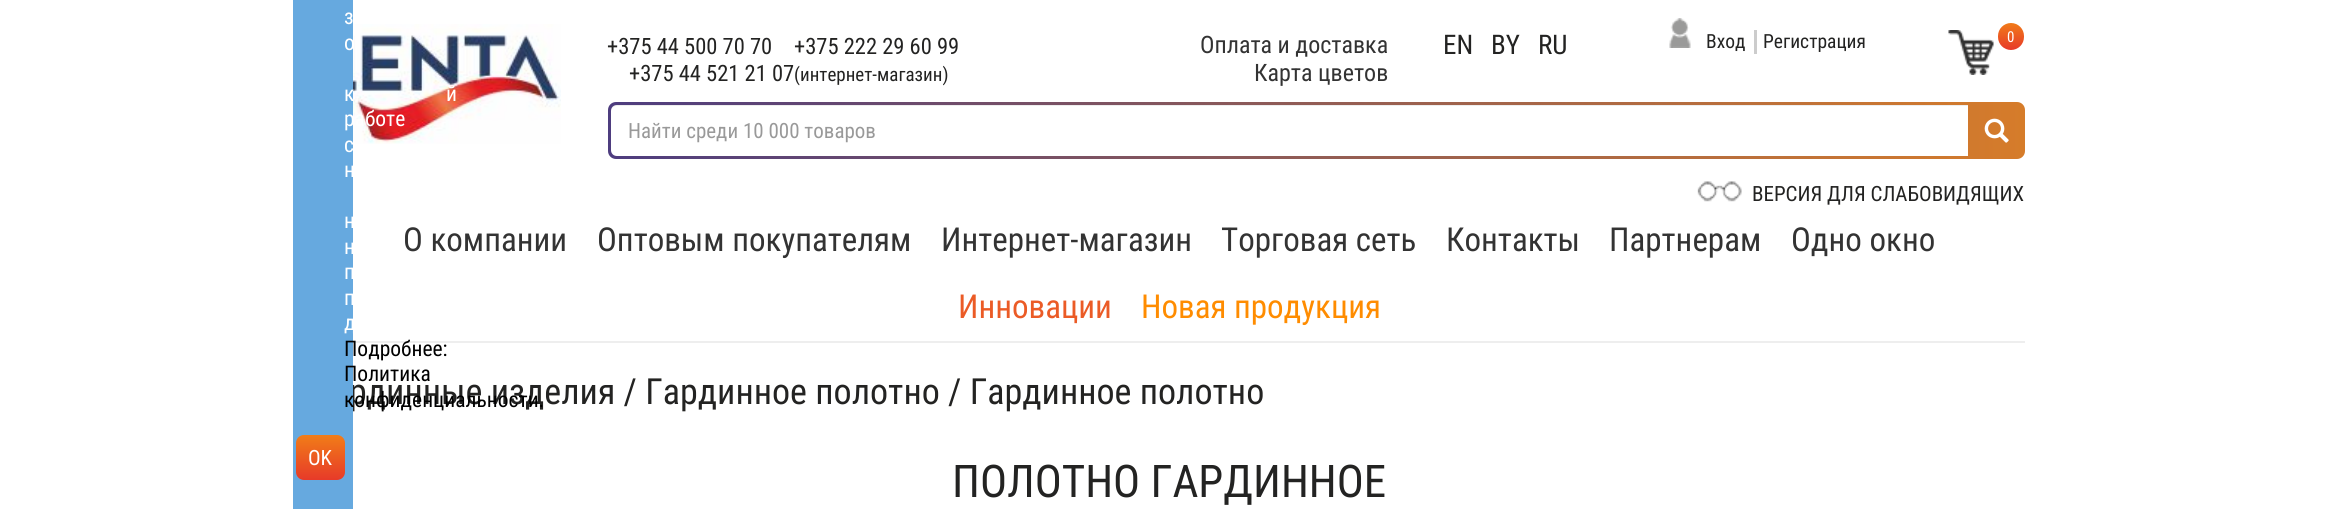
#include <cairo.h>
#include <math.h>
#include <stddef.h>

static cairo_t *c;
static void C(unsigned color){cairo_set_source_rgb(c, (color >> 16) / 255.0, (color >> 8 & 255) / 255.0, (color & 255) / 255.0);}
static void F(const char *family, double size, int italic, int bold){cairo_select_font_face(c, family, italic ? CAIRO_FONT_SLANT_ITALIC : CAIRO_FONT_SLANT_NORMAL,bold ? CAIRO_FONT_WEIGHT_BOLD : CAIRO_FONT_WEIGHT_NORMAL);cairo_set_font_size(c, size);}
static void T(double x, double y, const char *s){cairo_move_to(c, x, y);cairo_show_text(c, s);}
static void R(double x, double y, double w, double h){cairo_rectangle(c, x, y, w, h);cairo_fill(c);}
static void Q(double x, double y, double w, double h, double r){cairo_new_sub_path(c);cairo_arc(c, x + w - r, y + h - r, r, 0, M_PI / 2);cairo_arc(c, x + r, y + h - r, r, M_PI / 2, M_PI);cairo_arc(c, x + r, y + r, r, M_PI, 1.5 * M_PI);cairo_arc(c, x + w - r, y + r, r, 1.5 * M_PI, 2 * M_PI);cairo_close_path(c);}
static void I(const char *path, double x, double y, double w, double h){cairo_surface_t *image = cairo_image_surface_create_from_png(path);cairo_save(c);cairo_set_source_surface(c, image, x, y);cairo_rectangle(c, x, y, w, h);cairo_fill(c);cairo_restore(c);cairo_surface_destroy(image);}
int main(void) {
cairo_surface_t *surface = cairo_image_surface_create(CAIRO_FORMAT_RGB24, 2338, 509);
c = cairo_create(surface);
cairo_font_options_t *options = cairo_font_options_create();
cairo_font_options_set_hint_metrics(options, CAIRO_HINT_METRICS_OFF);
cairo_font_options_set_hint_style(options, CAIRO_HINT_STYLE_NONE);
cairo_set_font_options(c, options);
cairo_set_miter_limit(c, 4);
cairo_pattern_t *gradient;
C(0xffffff);
cairo_paint(c);
F("Roboto Condensed",36,0,0);
C(0x232322);
T(349,404,"рдинные изделия / Гардинное полотно / Гардинное полотно");
C(0x66a9df);
R(293,0,60,509);
F("Roboto Condensed",21.5,0,0);
C(0xffffff);
T(344,24,"з");
I("1.png",353,24,208,120);
T(344,50,"о");
T(344,101,"к");
T(446,101,"й");
T(344,126,"работе");
T(344,152,"с");
T(344,177,"н");
T(344,228,"н");
T(344,254,"н");
T(344,279,"п");
T(344,305,"п");
T(344,330,"д");
C(0xeeeeee);
R(353,341,1672,2);
C(0x000000);
T(344,356,"Подробнее:");
T(344,381,"Политика");
T(344,407,"конфиденциальности.");
gradient = cairo_pattern_create_linear(320,435,320,480);
cairo_pattern_add_color_stop_rgba(gradient,0,0.945,0.49,0.094,1);
cairo_pattern_add_color_stop_rgba(gradient,1,0.906,0.227,0.161,1);
cairo_set_source(c,gradient);
cairo_pattern_destroy(gradient);
Q(296,435,49,45,8);
cairo_fill(c);
F("Roboto Condensed",21,0,0);
C(0xffffff);
T(308,465,"OK");
F("Roboto Condensed",22.5,0,0);
C(0x232322);
T(607,54,"+375 44 500 70 70");
T(794,54,"+375 222 29 60 99");
T(629,81,"+375 44 521 21 07");
F("Roboto Condensed",19,0,0);
T(794,81,"(интернет-магазин)");
F("Roboto Condensed",24,0,0);
C(0x333333);
T(1200,53,"Оплата и доставка");
T(1254,81,"Карта цветов");
F("Roboto Condensed",27,0,0);
C(0x232322);
T(1443,54,"EN");
T(1491,54,"BY");
T(1538,54,"RU");
I("2.png",1669,18,22,30);
F("Roboto Condensed",19.5,0,0);
T(1706,48,"Вход");
C(0xcccccc);
R(1754,30,3,24);
C(0x232322);
T(1763,48,"Регистрация");
I("3.png",1948,30,46,45);
gradient = cairo_pattern_create_linear(2011,22,2011,50);
cairo_pattern_add_color_stop_rgba(gradient,0,0.945,0.49,0.094,1);
cairo_pattern_add_color_stop_rgba(gradient,1,0.906,0.227,0.161,1);
cairo_set_source(c,gradient);
cairo_pattern_destroy(gradient);
Q(1998,23,26,27,13);
cairo_fill(c);
F("Roboto Condensed",15,0,0);
C(0xffffff);
T(2007,42,"0");
gradient = cairo_pattern_create_linear(608,131,2025,130);
cairo_pattern_add_color_stop_rgba(gradient,0,0.306,0.239,0.498,1);
cairo_pattern_add_color_stop_rgba(gradient,1,0.839,0.486,0.165,1);
cairo_set_source(c,gradient);
cairo_pattern_destroy(gradient);
Q(608,102,1417,57,8);
cairo_fill(c);
C(0xffffff);
cairo_new_path(c);
cairo_move_to(c,617,105);
cairo_line_to(c,1968,105);
cairo_line_to(c,1968,156);
cairo_line_to(c,617,156);
cairo_curve_to(c,613.5,156,611,153.5,611,150);
cairo_line_to(c,611,111);
cairo_curve_to(c,611,107.5,613.5,105,617,105);
cairo_close_path(c);
cairo_fill(c);
cairo_set_source_rgba(c,0,0,0,0.07);
cairo_new_path(c);
cairo_move_to(c,616,106);
cairo_line_to(c,1968,106);
cairo_line_to(c,1968,105);
cairo_line_to(c,617,105);
cairo_curve_to(c,615,105,613,106,612,108);
cairo_curve_to(c,613,107,615,106,616,106);
cairo_close_path(c);
cairo_fill(c);
F("Roboto Condensed",21,0,0);
C(0x999999);
T(628,138,"Найти среди 10 000 товаров");
I("4.png",1984,118,25,25);
I("5.png",1697,181,45,21);
C(0x232322);
T(1752,201,"ВЕРСИЯ ДЛЯ СЛАБОВИДЯЩИХ");
F("Roboto Condensed",33,0,0);
C(0x333333);
T(403,251,"О компании");
T(597,251,"Оптовым покупателям");
T(941,251,"Интернет-магазин");
T(1221,251,"Торговая сеть");
T(1446,251,"Контакты");
T(1609,251,"Партнерам");
T(1791,251,"Одно окно");
C(0xeb5b26);
T(958,318,"Инновации");
C(0xff8c00);
T(1141,318,"Новая продукция");
F("Roboto Condensed",45,0,0);
C(0x232322);
T(952,497,"ПОЛОТНО ГАРДИННОЕ");
cairo_surface_write_to_png(surface, "o.png");
cairo_font_options_destroy(options);
cairo_destroy(c);
cairo_surface_destroy(surface);
return 0;
}
